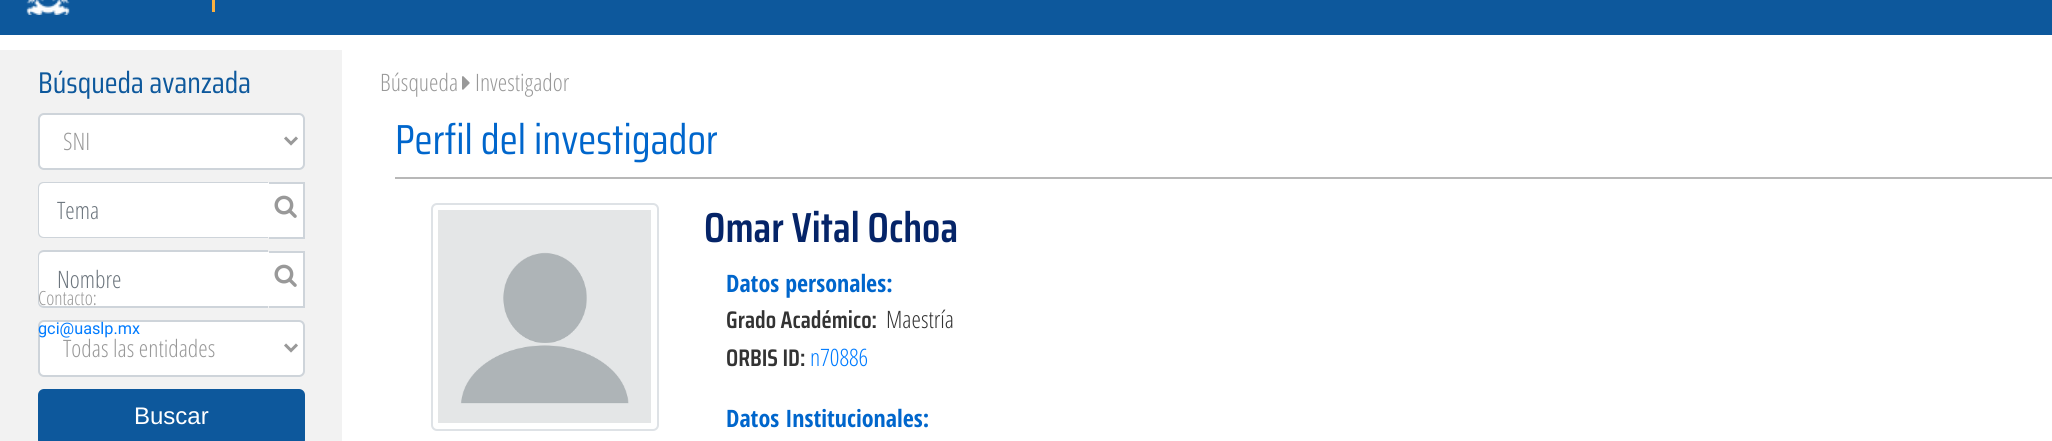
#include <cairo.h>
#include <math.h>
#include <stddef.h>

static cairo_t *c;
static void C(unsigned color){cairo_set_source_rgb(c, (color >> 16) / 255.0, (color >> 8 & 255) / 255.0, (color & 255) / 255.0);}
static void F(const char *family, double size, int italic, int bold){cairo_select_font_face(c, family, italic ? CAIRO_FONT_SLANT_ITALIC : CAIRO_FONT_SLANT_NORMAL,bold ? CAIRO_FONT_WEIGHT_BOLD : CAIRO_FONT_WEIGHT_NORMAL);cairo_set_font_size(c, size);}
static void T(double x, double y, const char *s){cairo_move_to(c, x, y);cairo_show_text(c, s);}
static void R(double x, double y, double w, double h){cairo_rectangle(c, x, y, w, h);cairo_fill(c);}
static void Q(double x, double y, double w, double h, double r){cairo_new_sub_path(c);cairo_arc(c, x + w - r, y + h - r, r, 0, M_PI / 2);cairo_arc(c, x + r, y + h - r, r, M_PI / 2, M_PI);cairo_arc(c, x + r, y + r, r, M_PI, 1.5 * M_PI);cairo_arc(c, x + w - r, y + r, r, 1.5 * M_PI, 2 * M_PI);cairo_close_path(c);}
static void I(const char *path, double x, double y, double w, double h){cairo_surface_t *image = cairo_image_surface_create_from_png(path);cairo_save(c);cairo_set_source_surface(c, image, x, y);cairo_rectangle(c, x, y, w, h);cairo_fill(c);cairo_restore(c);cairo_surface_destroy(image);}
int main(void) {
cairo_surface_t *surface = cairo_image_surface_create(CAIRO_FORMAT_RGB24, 2052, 441);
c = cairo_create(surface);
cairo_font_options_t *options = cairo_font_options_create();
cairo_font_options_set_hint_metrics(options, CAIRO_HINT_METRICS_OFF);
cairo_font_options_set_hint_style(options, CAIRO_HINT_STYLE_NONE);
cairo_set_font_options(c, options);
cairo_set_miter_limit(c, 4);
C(0xffffff);
cairo_paint(c);
C(0x0d589c);
R(0,0,2052,35);
I("1.png",26,0,44,15);
C(0xf9b040);
R(212,0,3,12);
C(0xf2f2f2);
R(0,50,342,391);
F("Saira Condensed",30,0,0);
C(0x0d589c);
T(38,93,"Búsqueda avanzada");
C(0xffffff);
Q(39,114,265,55,5);
cairo_fill_preserve(c);
C(0xced4da);
cairo_stroke(c);
cairo_new_path(c);
cairo_move_to(c,285,137.5);
cairo_line_to(c,291,143.5);
cairo_line_to(c,297,137.5);
C(0x999999);
cairo_set_line_width(c,3);
cairo_stroke(c);
F("Open Sans Light",24,0,0);
T(63,150,"SNI");
C(0xffffff);
cairo_new_path(c);
cairo_move_to(c,44,183);
cairo_line_to(c,269,183);
cairo_line_to(c,269,237);
cairo_line_to(c,44,237);
cairo_curve_to(c,41,237,39,235,39,232);
cairo_line_to(c,39,188);
cairo_curve_to(c,39,185,41,183,44,183);
cairo_close_path(c);
cairo_fill(c);
C(0xced4da);
cairo_set_fill_rule(c,CAIRO_FILL_RULE_EVEN_ODD);
cairo_new_path(c);
cairo_move_to(c,44,182);
cairo_line_to(c,268,182);
cairo_line_to(c,268,238);
cairo_line_to(c,44,238);
cairo_curve_to(c,40,238,38,236,38,232);
cairo_line_to(c,38,188);
cairo_curve_to(c,38,184,40,182,44,182);
cairo_close_path(c);
cairo_move_to(c,44,183);
cairo_line_to(c,268,183);
cairo_line_to(c,268,237);
cairo_line_to(c,44,237);
cairo_curve_to(c,41,237,39,235,39,232);
cairo_line_to(c,39,188);
cairo_curve_to(c,39,185,41,183,44,183);
cairo_close_path(c);
cairo_fill(c);
C(0x6c757d);
T(57,219,"Tema");
C(0xffffff);
R(269,184,34,53);
C(0xced4da);
R(269,182,36,2);
R(303,182,2,57);
R(269,237,36,2);
I("2.png",274,195,23,23);
C(0xffffff);
cairo_new_path(c);
cairo_move_to(c,44,252);
cairo_line_to(c,269,252);
cairo_line_to(c,269,306);
cairo_line_to(c,44,306);
cairo_curve_to(c,41,306,39,304,39,301);
cairo_line_to(c,39,257);
cairo_curve_to(c,39,254,41,252,44,252);
cairo_close_path(c);
cairo_fill(c);
C(0xced4da);
cairo_new_path(c);
cairo_move_to(c,44,250);
cairo_line_to(c,268,250);
cairo_line_to(c,268,308);
cairo_line_to(c,44,308);
cairo_curve_to(c,40,308,38,305,38,302);
cairo_line_to(c,38,256);
cairo_curve_to(c,38,253,40,250,44,250);
cairo_close_path(c);
cairo_move_to(c,44,252);
cairo_line_to(c,268,252);
cairo_line_to(c,268,306);
cairo_line_to(c,44,306);
cairo_curve_to(c,41,306,39,304,39,302);
cairo_line_to(c,39,256);
cairo_curve_to(c,39,254,41,252,44,252);
cairo_close_path(c);
cairo_fill(c);
C(0x6c757d);
T(57,288,"Nombre");
C(0xffffff);
R(269,253,34,53);
C(0xced4da);
R(269,251,36,2);
R(303,251,2,57);
R(269,306,36,2);
I("2.png",274,264,23,23);
C(0xffffff);
Q(39,321,265,55,5);
cairo_fill_preserve(c);
C(0xced4da);
cairo_set_line_width(c,2);
cairo_stroke(c);
cairo_new_path(c);
cairo_move_to(c,285,344.5);
cairo_line_to(c,291,350.5);
cairo_line_to(c,297,344.5);
C(0x999999);
cairo_set_line_width(c,3);
cairo_stroke(c);
T(63,357,"Todas las entidades");
C(0x0d589c);
Q(38,389,267,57,6);
cairo_fill(c);
F("Liberation Sans",24,0,0);
C(0xffffff);
T(134,424,"Buscar");
F("Open Sans Light",19.5,0,0);
C(0x999999);
T(38,305,"Contacto:");
F("Roboto",16.25,0,0);
C(0x007bff);
T(38,334,"gci@uaslp.mx");
F("Open Sans Light",24,0,0);
C(0x999999);
T(380,91,"Búsqueda");
I("3.png",462,76,8,14);
T(475,91,"Investigador");
F("Saira Condensed",42,0,0);
C(0x0066cc);
T(395,154,"Perfil del investigador");
C(0xb8b8b8);
R(395,177,1657,2);
Q(432,204,226,226,5);
C(0xdee2e6);
cairo_set_line_width(c,2);
cairo_stroke(c);
I("4.png",438,210,213,213);
F("Saira Condensed SemiBold",42,0,0);
C(0x052468);
T(704,242,"Omar Vital Ochoa");
F("Open Sans Condensed",24,0,1);
C(0x0066cc);
T(726,292,"Datos personales:");
F("Saira Condensed SemiBold",24,0,0);
C(0x333333);
T(726,328,"Grado Académico:");
F("Open Sans Light",24,0,0);
T(886,328,"Maestría");
F("Saira Condensed SemiBold",24,0,0);
T(726,366,"ORBIS ID:");
F("Open Sans Light",24,0,0);
C(0x007bff);
T(810,366,"n70886");
F("Open Sans Condensed",24,0,1);
C(0x0066cc);
T(726,427,"Datos Institucionales:");
cairo_surface_write_to_png(surface, "o.png");
cairo_font_options_destroy(options);
cairo_destroy(c);
cairo_surface_destroy(surface);
return 0;
}
